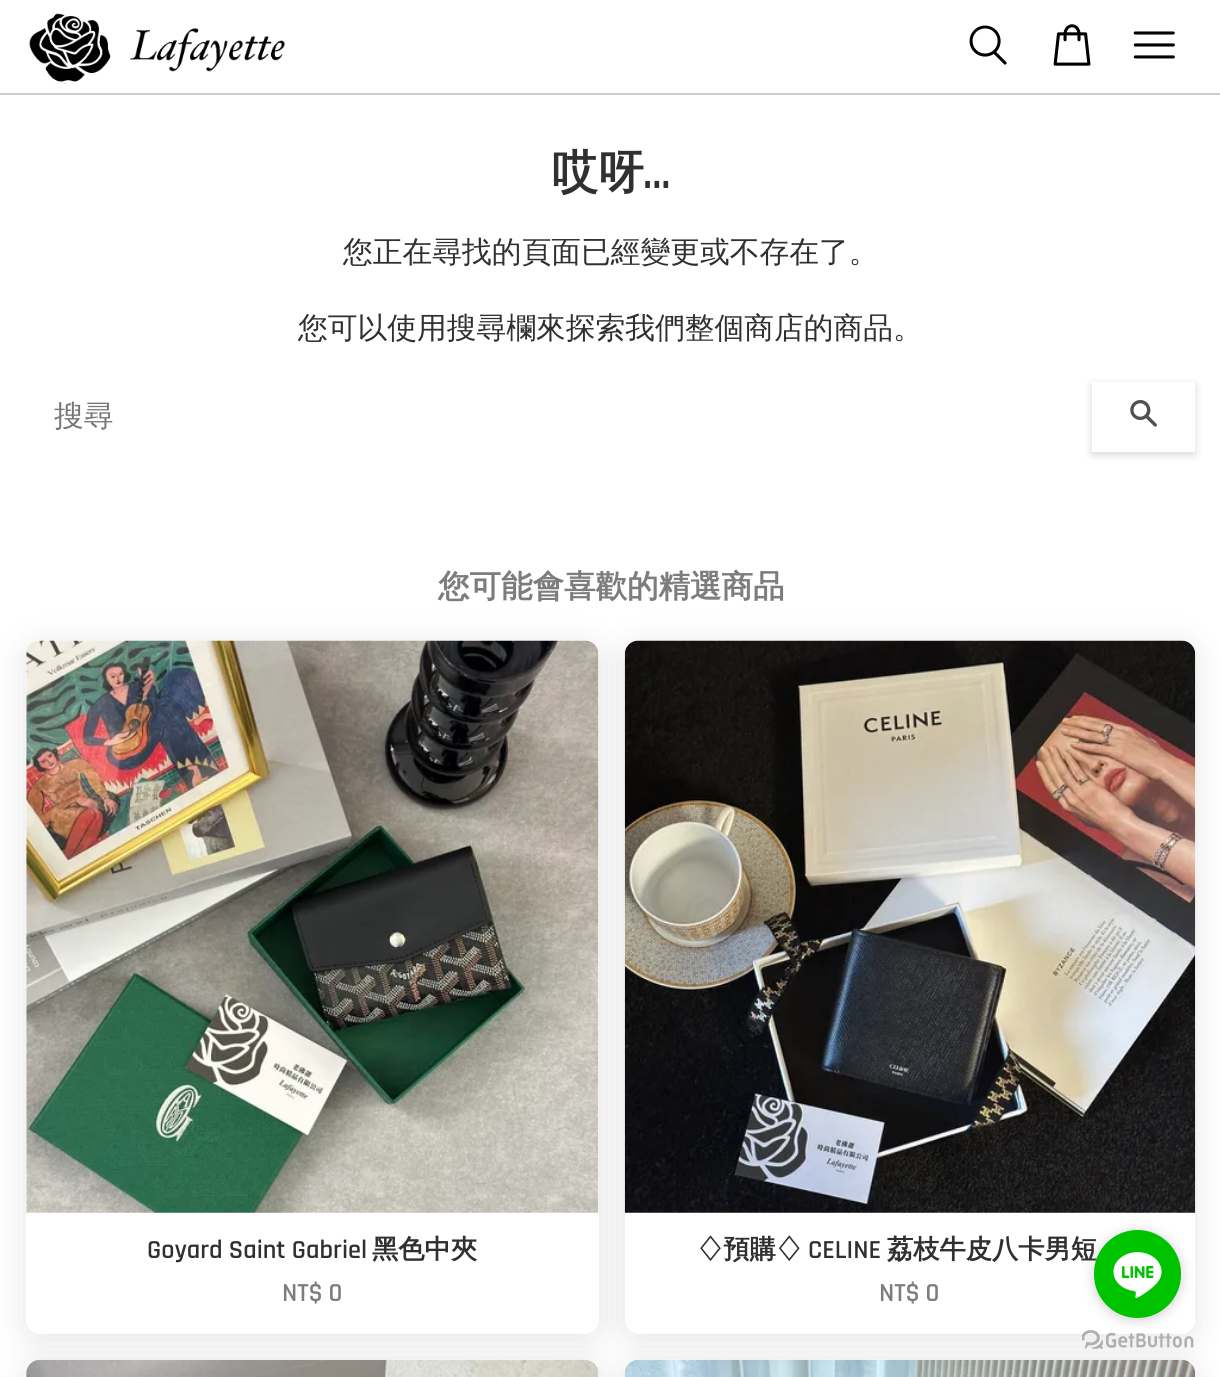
#include <cairo.h>
#include <math.h>
#include <stddef.h>

static cairo_t *c;
static void C(unsigned color){cairo_set_source_rgb(c, (color >> 16) / 255.0, (color >> 8 & 255) / 255.0, (color & 255) / 255.0);}
static void F(const char *family, double size, int italic, int bold){cairo_select_font_face(c, family, italic ? CAIRO_FONT_SLANT_ITALIC : CAIRO_FONT_SLANT_NORMAL,bold ? CAIRO_FONT_WEIGHT_BOLD : CAIRO_FONT_WEIGHT_NORMAL);cairo_set_font_size(c, size);}
static void T(double x, double y, const char *s){cairo_move_to(c, x, y);cairo_show_text(c, s);}
static void R(double x, double y, double w, double h){cairo_rectangle(c, x, y, w, h);cairo_fill(c);}
static void Q(double x, double y, double w, double h, double r){cairo_new_sub_path(c);cairo_arc(c, x + w - r, y + h - r, r, 0, M_PI / 2);cairo_arc(c, x + r, y + h - r, r, M_PI / 2, M_PI);cairo_arc(c, x + r, y + r, r, M_PI, 1.5 * M_PI);cairo_arc(c, x + w - r, y + r, r, 1.5 * M_PI, 2 * M_PI);cairo_close_path(c);}
static void S(double x, double y, double w, double h, double r, double blur, double alpha){cairo_push_group_with_content(c, CAIRO_CONTENT_ALPHA);cairo_set_operator(c, CAIRO_OPERATOR_SOURCE);for (int i = 15; i >= -15 && fmin(w, h) + blur * i / 3 > 0; i -= 2) {double e = blur * i / 6;cairo_set_source_rgba(c, 0, 0, 0, alpha * erfc((i - 1) / 8.5) / 2);Q(x - e, y - e, w + 2 * e, h + 2 * e, fmax(0, fmin(r + e + blur * .6, fmin(w, h) / 2 + e)));cairo_fill(c);}cairo_pattern_t *soft = cairo_pop_group(c);cairo_mask(c, soft);cairo_pattern_destroy(soft);}
static void I(const char *path, double x, double y, double w, double h){cairo_surface_t *image = cairo_image_surface_create_from_png(path);cairo_save(c);cairo_set_source_surface(c, image, x, y);cairo_rectangle(c, x, y, w, h);cairo_fill(c);cairo_restore(c);cairo_surface_destroy(image);}
int main(void) {
cairo_surface_t *surface = cairo_image_surface_create(CAIRO_FORMAT_RGB24, 1220, 1377);
c = cairo_create(surface);
cairo_font_options_t *options = cairo_font_options_create();
cairo_font_options_set_hint_metrics(options, CAIRO_HINT_METRICS_OFF);
cairo_font_options_set_hint_style(options, CAIRO_HINT_STYLE_NONE);
cairo_set_font_options(c, options);
cairo_set_miter_limit(c, 4);
C(0xffffff);
cairo_paint(c);
C(0xcccccc);
R(0,93,1220,2);
I("1.png",29,13,256,71);
I("2.png",969,25,38,40);
I("3.png",1053,24,38,42);
I("4.png",1133,31,42,28);
F("WenQuanYi Zen Hei",46,0,1);
C(0x303030);
T(552,188,"哎呀");
F("Rajdhani SemiBold",46,0,0);
T(643,188,"...");
F("WenQuanYi Zen Hei Medium",29.75,0,0);
T(343,262,"您正在尋找的頁面已經變更或不存在了。");
T(298,338,"您可以使用搜尋欄來探索我們整個商店的商品。");
C(0x757575);
T(54,426,"搜尋");
C(0x000000);
S(1092,385,103,70,0,4.5,.15);
C(0xffffff);
R(1092,382,103,70);
I("5.png",1130,400,27,27);
F("WenQuanYi Zen Hei",31.5,0,1);
C(0x7d7d7d);
T(438,597,"您可能會喜歡的精選商品");
cairo_save(c);
cairo_set_fill_rule(c,CAIRO_FILL_RULE_EVEN_ODD);
cairo_new_path(c);
cairo_move_to(c,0,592);
cairo_line_to(c,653,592);
cairo_line_to(c,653,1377);
cairo_line_to(c,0,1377);
cairo_close_path(c);
cairo_move_to(c,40,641);
cairo_line_to(c,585,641);
cairo_curve_to(c,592.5,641,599,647.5,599,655);
cairo_line_to(c,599,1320);
cairo_curve_to(c,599,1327.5,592.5,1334,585,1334);
cairo_line_to(c,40,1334);
cairo_curve_to(c,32.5,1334,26,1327.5,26,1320);
cairo_line_to(c,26,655);
cairo_curve_to(c,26,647.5,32.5,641,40,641);
cairo_close_path(c);
cairo_clip(c);
C(0x000000);
S(26,646,573,693,14,17.5,.1);
cairo_restore(c);
I("6.png",26,640,573,573);
F("Rajdhani SemiBold",26.25,0,0);
C(0x303030);
T(147,1258,"Goyard Saint Gabriel");
F("WenQuanYi Zen Hei",26.25,0,1);
T(372,1258,"黑色中夾");
F("Rajdhani SemiBold",26.25,0,0);
C(0x7d7d7d);
T(282,1301,"NT$ 0");
cairo_save(c);
cairo_set_fill_rule(c,CAIRO_FILL_RULE_EVEN_ODD);
cairo_new_path(c);
cairo_move_to(c,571,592);
cairo_line_to(c,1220,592);
cairo_line_to(c,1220,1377);
cairo_line_to(c,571,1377);
cairo_close_path(c);
cairo_move_to(c,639,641);
cairo_line_to(c,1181,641);
cairo_curve_to(c,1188.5,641,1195,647.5,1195,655);
cairo_line_to(c,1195,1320);
cairo_curve_to(c,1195,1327.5,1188.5,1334,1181,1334);
cairo_line_to(c,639,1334);
cairo_curve_to(c,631.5,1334,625,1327.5,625,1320);
cairo_line_to(c,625,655);
cairo_curve_to(c,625,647.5,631.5,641,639,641);
cairo_close_path(c);
cairo_clip(c);
C(0x000000);
S(625,646,570,693,14,17.5,.1);
cairo_restore(c);
I("7.png",624,640,572,573);
F("WenQuanYi Zen Hei",26.25,0,1);
C(0x303030);
T(697,1258,"♢預購♢");
F("Rajdhani SemiBold",26.25,0,0);
T(808,1258,"CELINE");
F("WenQuanYi Zen Hei",26.25,0,1);
T(887,1258,"荔枝牛皮八卡男短");
F("Rajdhani SemiBold",26.25,0,0);
C(0x7d7d7d);
T(879,1301,"NT$ 0");
C(0x000000);
S(26,1365,573,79,14,17.5,.1);
I("8.png",26,1359,573,18);
S(625,1365,570,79,14,17.5,.1);
I("9.png",624,1359,572,18);
I("11.png",1082,1330,112,19);
C(0x888888);
S(1094,1232,87,88,43.5,6,.4);
C(0x00c300);
Q(1094,1230,87,88,43.5);
cairo_fill(c);
I("10.png",1113,1252,49,46);
cairo_surface_write_to_png(surface, "o.png");
cairo_font_options_destroy(options);
cairo_destroy(c);
cairo_surface_destroy(surface);
return 0;
}
